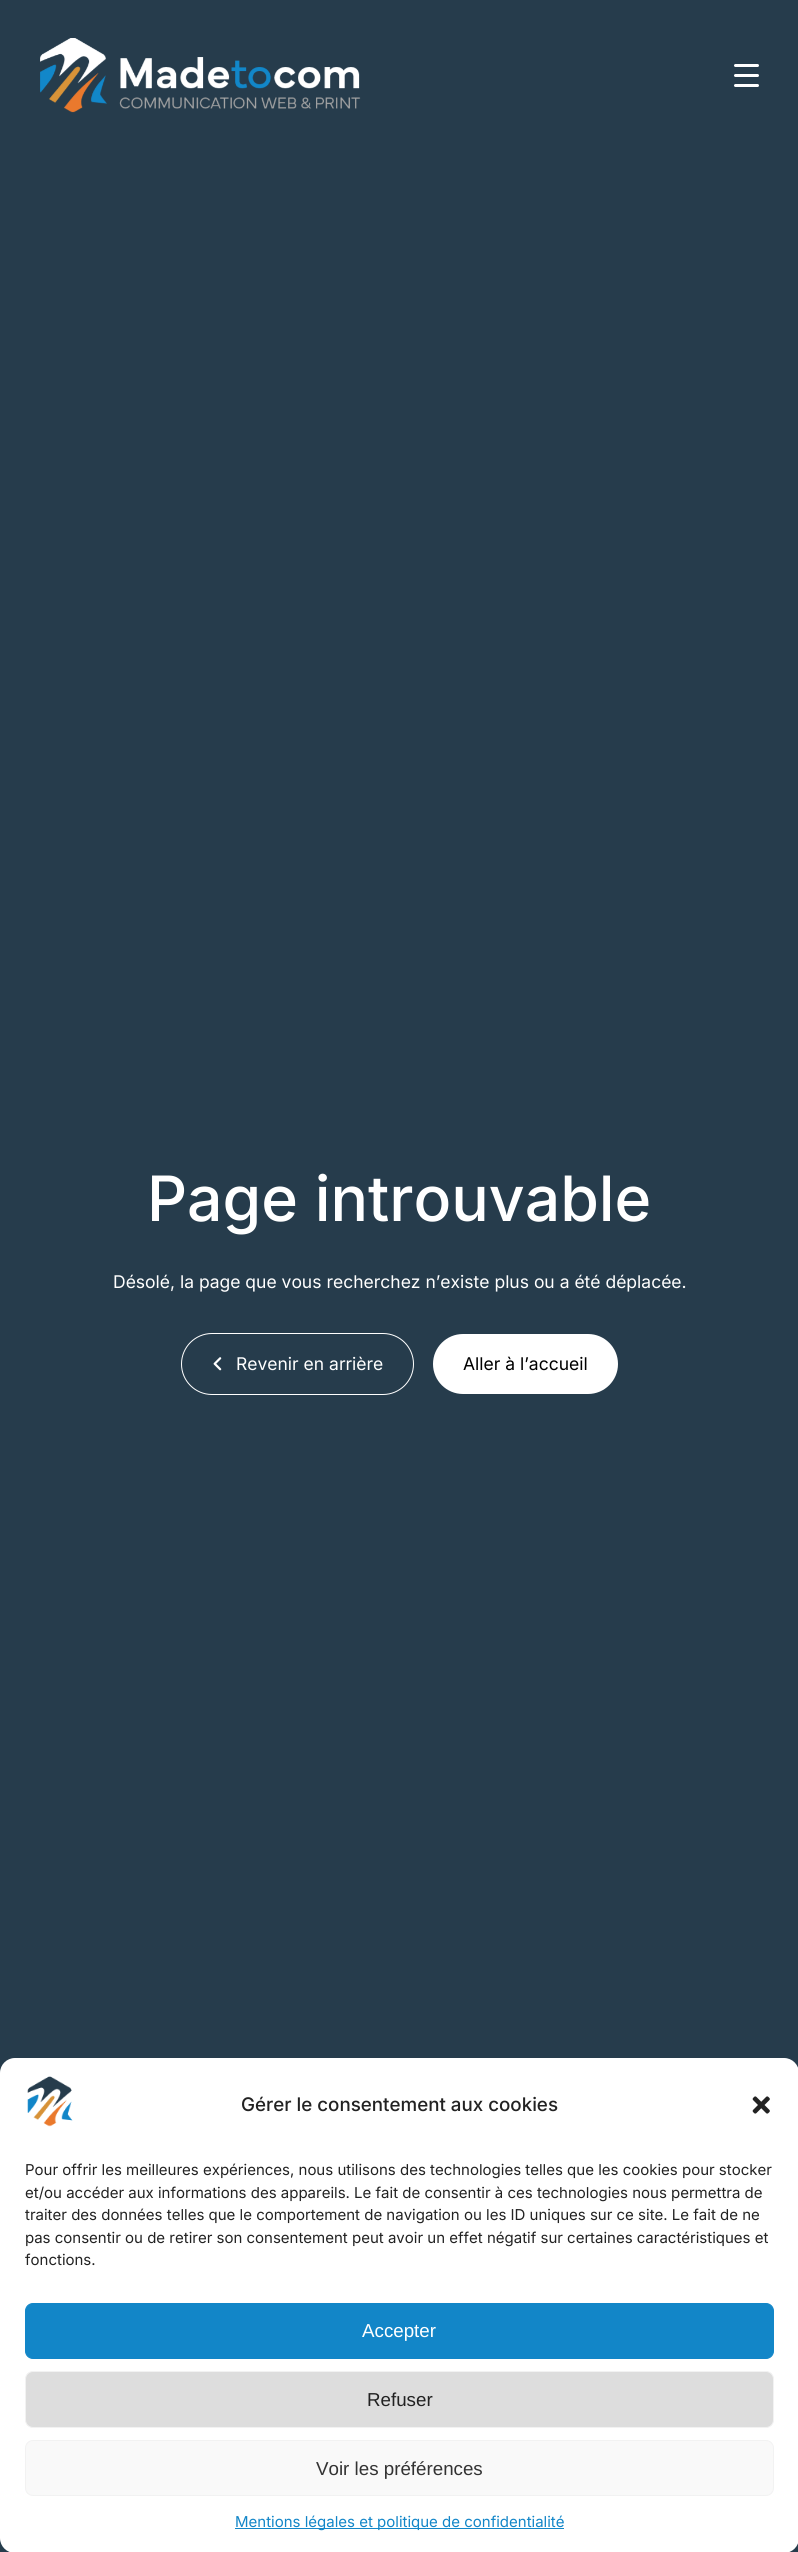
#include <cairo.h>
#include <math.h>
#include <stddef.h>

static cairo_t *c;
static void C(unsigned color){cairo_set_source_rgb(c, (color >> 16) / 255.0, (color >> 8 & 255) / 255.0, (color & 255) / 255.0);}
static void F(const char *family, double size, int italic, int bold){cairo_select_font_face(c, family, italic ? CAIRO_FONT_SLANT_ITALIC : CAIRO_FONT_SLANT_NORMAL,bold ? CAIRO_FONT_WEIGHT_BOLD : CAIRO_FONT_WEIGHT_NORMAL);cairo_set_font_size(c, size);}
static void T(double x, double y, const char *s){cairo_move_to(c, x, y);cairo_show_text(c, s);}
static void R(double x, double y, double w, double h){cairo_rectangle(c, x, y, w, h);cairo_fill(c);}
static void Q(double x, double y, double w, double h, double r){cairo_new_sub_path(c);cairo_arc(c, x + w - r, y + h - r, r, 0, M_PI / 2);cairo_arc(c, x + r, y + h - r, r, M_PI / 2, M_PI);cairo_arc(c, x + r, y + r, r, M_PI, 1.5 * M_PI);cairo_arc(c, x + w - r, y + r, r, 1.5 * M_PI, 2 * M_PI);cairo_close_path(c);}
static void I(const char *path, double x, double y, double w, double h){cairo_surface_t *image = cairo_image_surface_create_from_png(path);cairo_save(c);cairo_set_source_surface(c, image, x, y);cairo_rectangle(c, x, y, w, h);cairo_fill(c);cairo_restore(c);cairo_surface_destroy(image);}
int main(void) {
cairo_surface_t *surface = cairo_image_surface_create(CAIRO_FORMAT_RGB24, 798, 2552);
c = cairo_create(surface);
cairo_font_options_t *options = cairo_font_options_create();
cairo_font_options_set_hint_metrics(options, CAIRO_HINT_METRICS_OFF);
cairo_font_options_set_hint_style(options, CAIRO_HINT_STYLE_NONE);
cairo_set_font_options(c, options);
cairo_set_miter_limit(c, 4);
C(0x263c4c);
cairo_paint(c);
I("1.png",40,38,321,75);
C(0xffffff);
Q(734,74,25,3,1.5);
cairo_fill(c);
Q(734,64,25,3,1.5);
cairo_fill(c);
Q(734,84,25,3,1.5);
cairo_fill(c);
F("Inter Medium",62.5,0,0);
T(147,1221,"Page introuvable");
F("Inter",17.5,0,0);
T(113,1288,"Désolé, la page que vous recherchez n’existe plus ou a été déplacée.");
Q(181.5,1333.5,232,61,30.5);
cairo_set_line_width(c,1);
cairo_stroke(c);
I("2.png",213,1357,9,14);
T(236,1370,"Revenir en arrière");
Q(433,1334,185,60,30);
cairo_fill(c);
C(0x000000);
T(463,1370,"Aller à l’accueil");
C(0xffffff);
Q(0,2058,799,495,15);
cairo_fill(c);
I("3.png",27,2076,46,51);
F("Inter Medium",18.75,0,0);
C(0x222222);
T(241,2111,"Gérer le consentement aux cookies");
I("4.png",752,2096,18,18);
F("Inter",15,0,0);
T(25,2175,"Pour offrir les meilleures expériences, nous utilisons des technologies telles que les cookies pour stocker");
T(25,2198,"et/ou accéder aux informations des appareils. Le fait de consentir à ces technologies nous permettra de");
T(25,2220,"traiter des données telles que le comportement de navigation ou les ID uniques sur ce site. Le fait de ne");
T(25,2243,"pas consentir ou de retirer son consentement peut avoir un effet négatif sur certaines caractéristiques et");
T(25,2265,"fonctions.");
C(0x1286c8);
Q(25.5,2303.5,748,55,7.5);
cairo_fill_preserve(c);
cairo_stroke(c);
F("Liberation Sans",18.75,0,0);
C(0xffffff);
T(362,2337,"Accepter");
C(0xdddddd);
Q(25.5,2371.5,748,56,7.5);
cairo_fill_preserve(c);
C(0xf2f2f2);
cairo_stroke(c);
C(0x222222);
T(367,2406,"Refuser");
C(0xf9f9f9);
Q(25.5,2440.5,748,55,7.5);
cairo_fill_preserve(c);
C(0xf2f2f2);
cairo_stroke(c);
C(0x333333);
T(316,2475,"Voir les préférences");
C(0x1286c8);
R(235,2528,329,1);
F("Inter",15,0,0);
T(235,2527,"Mentions légales et politique de confidentialité");
cairo_surface_write_to_png(surface, "o.png");
cairo_font_options_destroy(options);
cairo_destroy(c);
cairo_surface_destroy(surface);
return 0;
}
